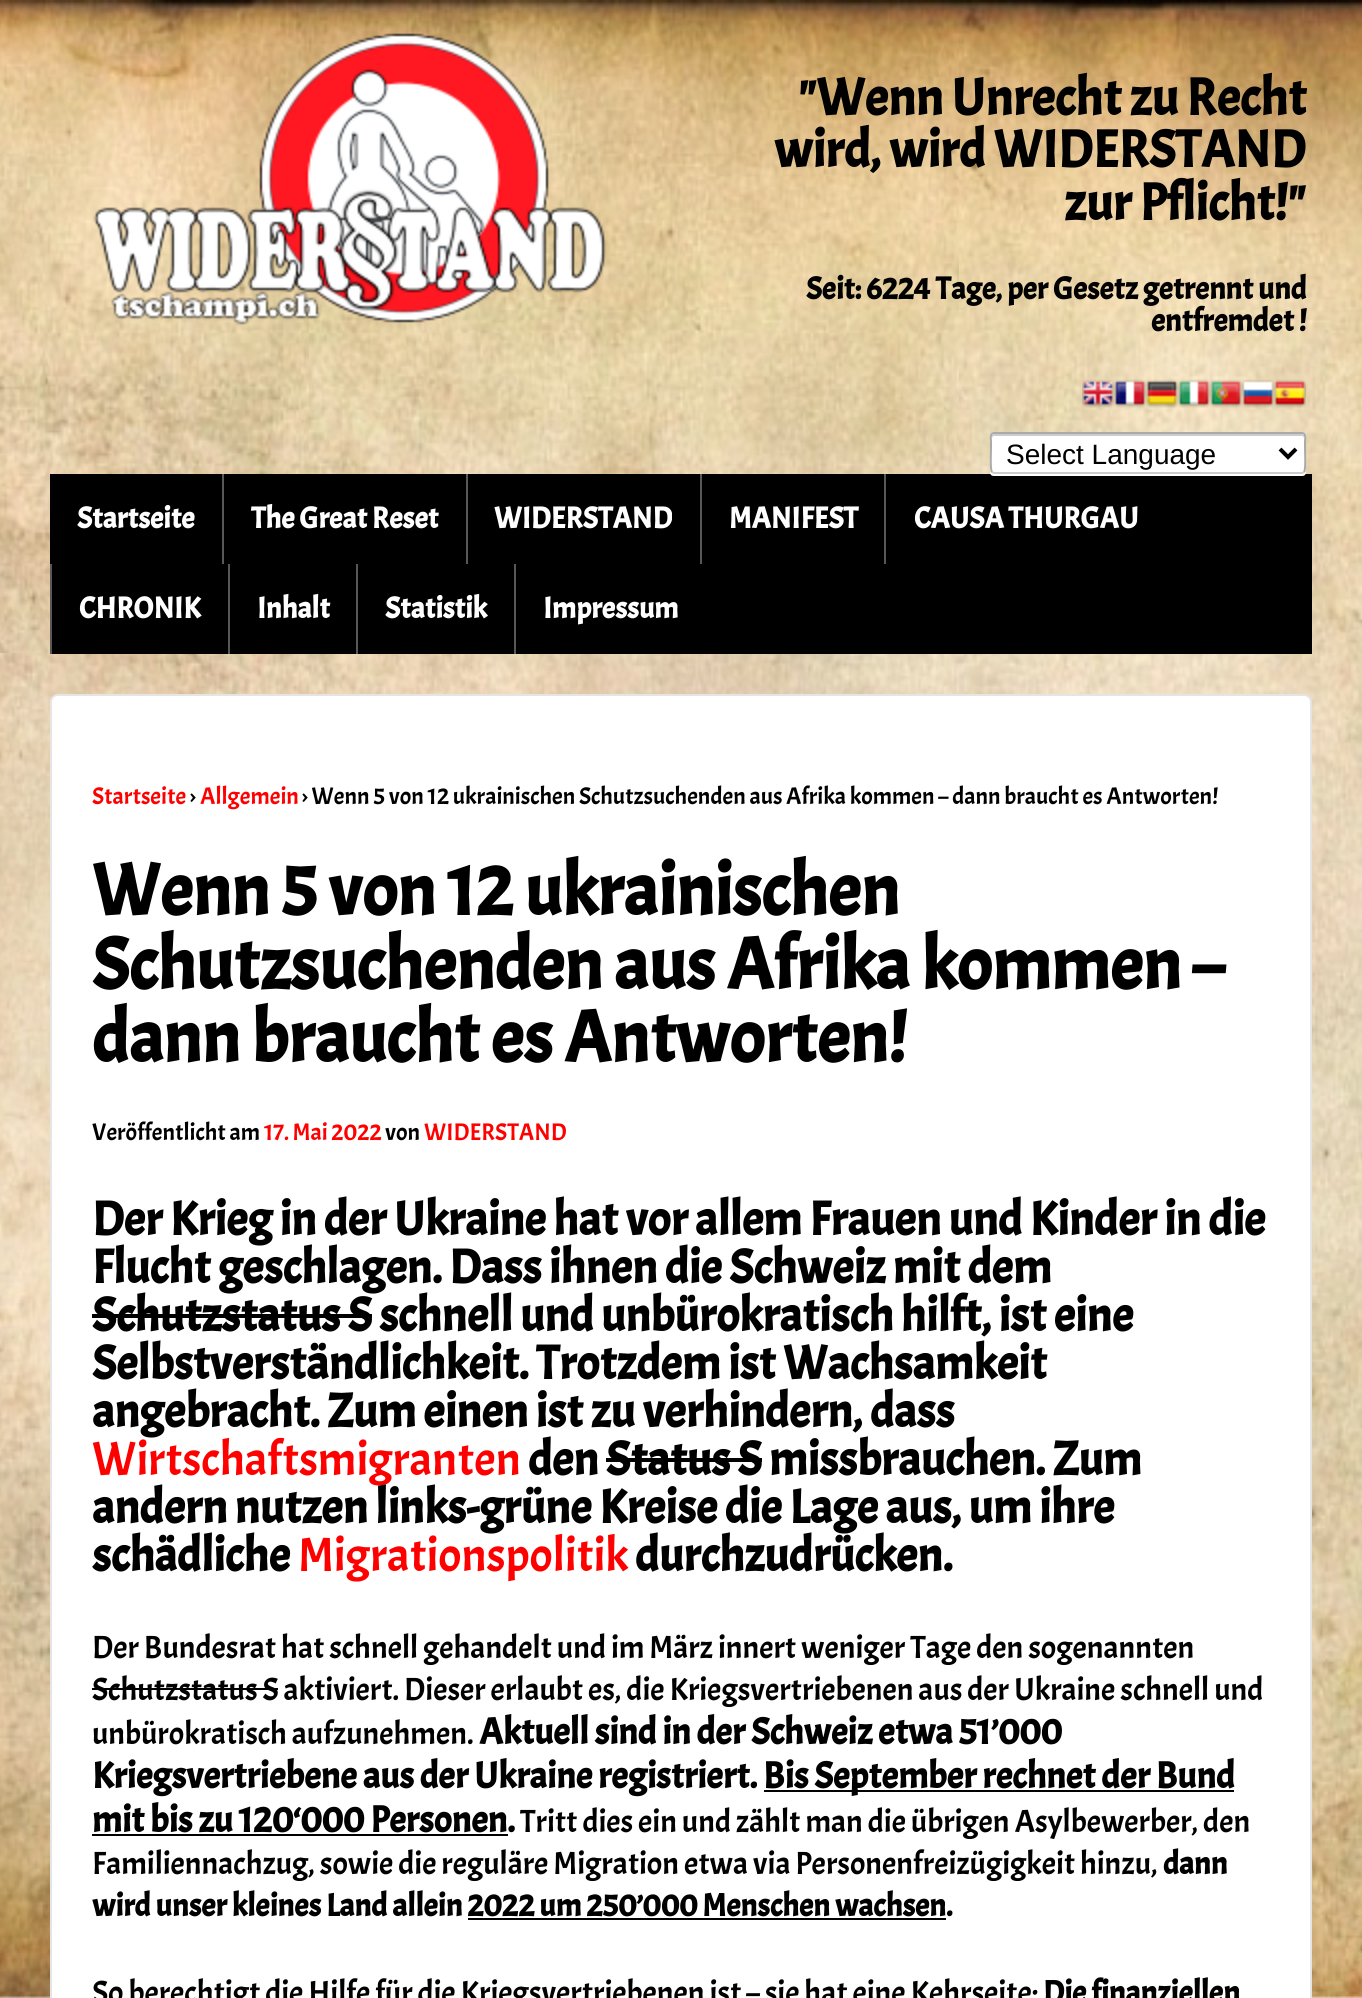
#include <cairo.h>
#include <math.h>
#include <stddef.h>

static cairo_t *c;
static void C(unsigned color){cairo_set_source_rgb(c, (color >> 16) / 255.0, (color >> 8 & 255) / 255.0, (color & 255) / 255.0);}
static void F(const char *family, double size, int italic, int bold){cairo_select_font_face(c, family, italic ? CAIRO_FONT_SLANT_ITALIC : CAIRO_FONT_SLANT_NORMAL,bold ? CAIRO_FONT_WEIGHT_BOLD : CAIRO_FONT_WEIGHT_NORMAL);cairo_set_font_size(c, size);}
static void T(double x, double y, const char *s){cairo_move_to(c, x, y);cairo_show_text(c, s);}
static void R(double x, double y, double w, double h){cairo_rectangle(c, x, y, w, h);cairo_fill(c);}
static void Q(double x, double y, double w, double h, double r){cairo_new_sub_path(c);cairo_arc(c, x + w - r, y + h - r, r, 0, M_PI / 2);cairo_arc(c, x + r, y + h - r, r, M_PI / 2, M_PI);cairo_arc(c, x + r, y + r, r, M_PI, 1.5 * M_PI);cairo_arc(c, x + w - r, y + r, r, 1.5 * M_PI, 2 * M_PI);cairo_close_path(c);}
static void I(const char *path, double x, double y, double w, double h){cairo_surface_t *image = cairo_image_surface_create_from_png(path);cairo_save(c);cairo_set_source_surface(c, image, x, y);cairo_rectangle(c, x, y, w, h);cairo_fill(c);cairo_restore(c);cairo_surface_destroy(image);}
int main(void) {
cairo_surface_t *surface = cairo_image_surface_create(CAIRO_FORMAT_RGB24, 1362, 1998);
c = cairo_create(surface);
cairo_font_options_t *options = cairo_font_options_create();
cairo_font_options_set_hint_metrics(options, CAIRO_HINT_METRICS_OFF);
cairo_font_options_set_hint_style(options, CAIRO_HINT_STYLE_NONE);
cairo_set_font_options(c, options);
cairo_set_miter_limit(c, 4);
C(0xffffff);
cairo_paint(c);
I("1.png",0,0,1362,1998);
I("2.png",93,33,514,292);
F("Acme",52.5,0,1);
C(0x000000);
T(798,115,"\"Wenn Unrecht zu Recht");
T(774,167,"wird, wird WIDERSTAND");
T(1064,220,"zur Pflicht!\"");
F("Acme",31.5,0,1);
T(806,299,"Seit: 6224 Tage, per Gesetz getrennt und");
T(1151,331,"entfremdet !");
I("3.png",1082,379,32,29);
I("4.png",1114,379,32,29);
I("5.png",1146,379,32,29);
I("6.png",1178,379,32,29);
I("7.png",1210,379,32,29);
I("8.png",1242,379,32,29);
I("9.png",1274,379,32,29);
R(50,474,1262,180);
C(0xffffff);
cairo_new_path(c);
cairo_move_to(c,990,470);
cairo_curve_to(c,990,473,990,476,994,476);
cairo_line_to(c,1302,476);
cairo_curve_to(c,1306,476,1306,473,1306,470);
cairo_curve_to(c,1306,472,1304,474,1302,474);
cairo_line_to(c,994,474);
cairo_curve_to(c,992,474,990,472,990,470);
cairo_close_path(c);
cairo_fill(c);
Q(990,432,316,42,4);
cairo_fill(c);
C(0xcccccc);
cairo_new_path(c);
cairo_move_to(c,994,436);
cairo_line_to(c,1302,436);
cairo_curve_to(c,1303,436,1304,437,1304,438);
cairo_line_to(c,1304,436);
cairo_curve_to(c,1304,435,1303,434,1302,434);
cairo_line_to(c,994,434);
cairo_curve_to(c,993,434,992,435,992,436);
cairo_line_to(c,992,438);
cairo_curve_to(c,992,437,993,436,994,436);
cairo_close_path(c);
cairo_fill(c);
cairo_new_path(c);
cairo_move_to(c,1304,472);
cairo_line_to(c,1302,473);
cairo_line_to(c,994,473);
cairo_line_to(c,992,472);
cairo_stroke(c);
cairo_new_path(c);
cairo_move_to(c,992,472);
cairo_curve_to(c,990,470,991,451,991,447.5);
cairo_line_to(c,991,441.5);
cairo_curve_to(c,991,439.5,989.5,433,994,433);
cairo_line_to(c,1302,433);
cairo_curve_to(c,1306.5,433,1305,439.5,1305,441.5);
cairo_line_to(c,1305,447.5);
cairo_curve_to(c,1305,451,1306,470,1304,472);
C(0xaaaaaa);
cairo_stroke(c);
cairo_new_path(c);
cairo_move_to(c,1280,449);
cairo_line_to(c,1288,457);
cairo_line_to(c,1296,449);
C(0x000000);
cairo_set_line_width(c,4);
cairo_stroke(c);
F("Liberation Sans",28,0,0);
T(1006,464,"Select Language");
F("Acme",30,0,1);
C(0xffffff);
T(77,528,"Startseite");
C(0x585858);
R(222,474,2,90);
C(0xffffff);
T(251,528,"The Great Reset");
C(0x585858);
R(466,474,2,90);
C(0xffffff);
T(494,528,"WIDERSTAND");
C(0x585858);
R(700,474,2,90);
C(0xffffff);
T(729,528,"MANIFEST");
C(0x585858);
R(884,474,2,90);
C(0xffffff);
T(914,528,"CAUSA THURGAU");
C(0x585858);
R(50,564,2,90);
C(0xffffff);
T(79,618,"CHRONIK");
C(0x585858);
R(228,564,2,90);
C(0xffffff);
T(257,618,"Inhalt");
C(0x585858);
R(356,564,2,90);
C(0xffffff);
T(385,618,"Statistik");
C(0x585858);
R(514,564,2,90);
C(0xffffff);
T(543,618,"Impressum");
Q(51,695,1260,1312,7);
cairo_fill_preserve(c);
C(0xe5e5e5);
cairo_set_line_width(c,2);
cairo_stroke(c);
F("Acme",24,0,0);
C(0xff0000);
T(92,804,"Startseite");
C(0x000000);
T(190,804,"›");
C(0xff0000);
T(200,804,"Allgemein");
C(0x000000);
T(302,804,"› Wenn 5 von 12 ukrainischen Schutzsuchenden aus Afrika kommen – dann braucht es Antworten!");
F("Acme",73.5,0,1);
T(92,915,"Wenn 5 von 12 ukrainischen");
T(92,989,"Schutzsuchenden aus Afrika kommen –");
T(92,1062,"dann braucht es Antworten!");
F("Acme",24,0,0);
T(92,1140,"Veröffentlicht am");
C(0xff0000);
T(264,1140,"17. Mai 2022");
C(0x000000);
T(385,1140,"von");
C(0xff0000);
T(424,1140,"WIDERSTAND");
F("Acme",48,0,1);
C(0x000000);
T(92,1235,"Der Krieg in der Ukraine hat vor allem Frauen und Kinder in die");
T(92,1283,"Flucht geschlagen. Dass ihnen die Schweiz mit dem");
T(92,1331,"Schutzstatus S schnell und unbürokratisch hilft, ist eine");
R(92,1314,280,4);
T(92,1379,"Selbstverständlichkeit. Trotzdem ist Wachsamkeit");
T(92,1427,"angebracht. Zum einen ist zu verhindern, dass");
F("Acme",48,0,0);
C(0xff0000);
T(92,1475,"Wirtschaftsmigranten");
F("Acme",48,0,1);
C(0x000000);
T(528,1475,"den Status S missbrauchen. Zum");
R(606,1458,156,4);
T(92,1523,"andern nutzen links-grüne Kreise die Lage aus, um ihre");
T(92,1571,"schädliche");
F("Acme",48,0,0);
C(0xff0000);
T(298,1571,"Migrationspolitik");
F("Acme",48,0,1);
C(0x000000);
T(635,1571,"durchzudrücken.");
F("Acme",32,0,0);
T(92,1658,"Der Bundesrat hat schnell gehandelt und im März innert weniger Tage den sogenannten");
T(92,1700,"Schutzstatus S aktiviert. Dieser erlaubt es, die Kriegsvertriebenen aus der Ukraine schnell und");
R(92,1688,186,2);
T(92,1744,"unbürokratisch aufzunehmen.");
F("Acme",37.3,0,1);
T(479,1744,"Aktuell sind in der Schweiz etwa 51’000");
T(92,1788,"Kriegsvertriebene aus der Ukraine registriert.");
R(764,1790,470,2);
T(763,1788,"Bis September rechnet der Bund");
T(92,1832,"mit bis zu 120‘000 Personen.");
R(92,1834,416,2);
F("Acme",32,0,0);
T(520,1832,"Tritt dies ein und zählt man die übrigen Asylbewerber, den");
T(92,1874,"Familiennachzug, sowie die reguläre Migration etwa via Personenfreizügigkeit hinzu,");
F("Acme",32,0,1);
T(1163,1874,"dann");
T(92,1916,"wird unser kleines Land allein 2022 um 250’000 Menschen wachsen.");
R(468,1918,478,2);
F("Acme",32,0,0);
T(92,2003,"So berechtigt die Hilfe für die Kriegsvertriebenen ist – sie hat eine Kehrseite:");
F("Acme",32,0,1);
T(1043,2003,"Die finanziellen");
cairo_surface_write_to_png(surface, "o.png");
cairo_font_options_destroy(options);
cairo_destroy(c);
cairo_surface_destroy(surface);
return 0;
}
